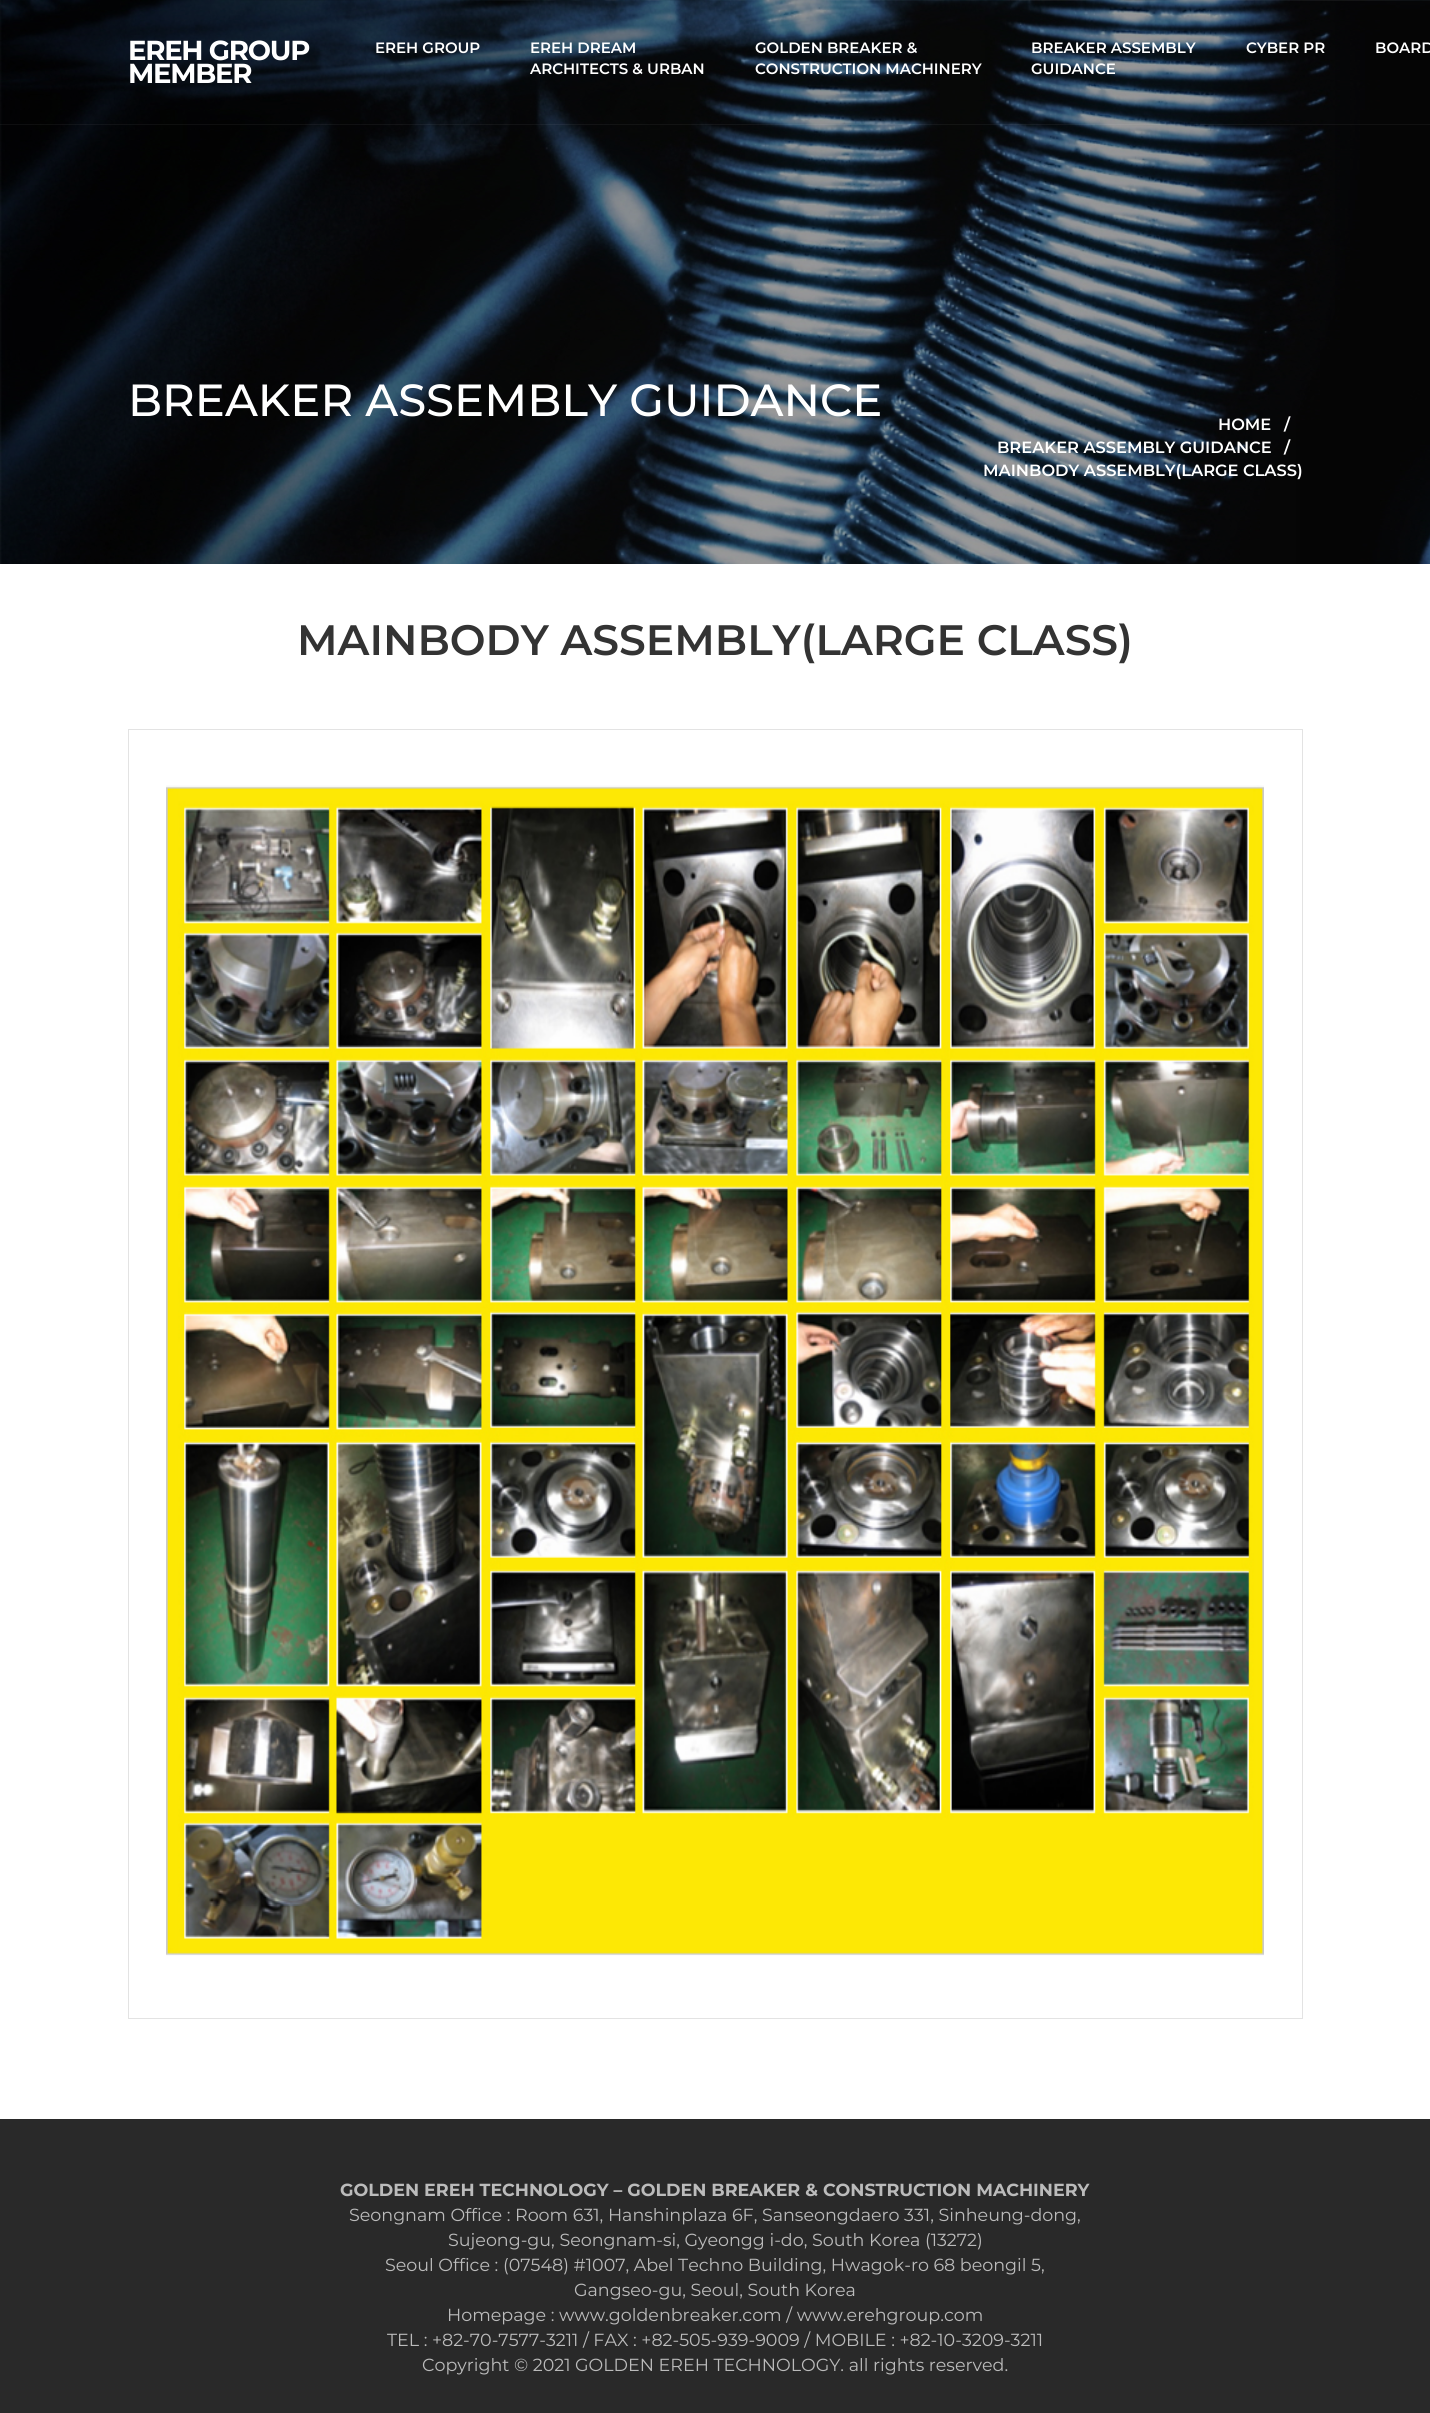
#include <cairo.h>
#include <math.h>
#include <stddef.h>

static cairo_t *c;
static void C(unsigned color){cairo_set_source_rgb(c, (color >> 16) / 255.0, (color >> 8 & 255) / 255.0, (color & 255) / 255.0);}
static void F(const char *family, double size, int italic, int bold){cairo_select_font_face(c, family, italic ? CAIRO_FONT_SLANT_ITALIC : CAIRO_FONT_SLANT_NORMAL,bold ? CAIRO_FONT_WEIGHT_BOLD : CAIRO_FONT_WEIGHT_NORMAL);cairo_set_font_size(c, size);}
static void T(double x, double y, const char *s){cairo_move_to(c, x, y);cairo_show_text(c, s);}
static void L(double x, double y, const char *s, double letter, double word){cairo_move_to(c, x, y);while (*s) {char ch[5] = {0};int n = 0;do ch[n++] = *s++; while ((*s & 0xC0) == 0x80);cairo_show_text(c, ch);cairo_rel_move_to(c, letter + word * (*ch == ' '), 0);}}
static void R(double x, double y, double w, double h){cairo_rectangle(c, x, y, w, h);cairo_fill(c);}
static void I(const char *path, double x, double y, double w, double h){cairo_surface_t *image = cairo_image_surface_create_from_png(path);cairo_save(c);cairo_set_source_surface(c, image, x, y);cairo_rectangle(c, x, y, w, h);cairo_fill(c);cairo_restore(c);cairo_surface_destroy(image);}
int main(void) {
cairo_surface_t *surface = cairo_image_surface_create(CAIRO_FORMAT_RGB24, 1430, 2413);
c = cairo_create(surface);
cairo_font_options_t *options = cairo_font_options_create();
cairo_font_options_set_hint_metrics(options, CAIRO_HINT_METRICS_OFF);
cairo_font_options_set_hint_style(options, CAIRO_HINT_STYLE_NONE);
cairo_set_font_options(c, options);
cairo_set_miter_limit(c, 4);
C(0xffffff);
cairo_paint(c);
I("1.png",0,0,1430,564);
cairo_set_source_rgba(c,1,1,1,0.05);
R(0,124,1430,1);
F("Montserrat",27.5,0,1);
C(0xffffff);
L(128,60,"EREH GROUP",-1.25,0);
L(128,83,"MEMBER",-1.25,0);
F("Montserrat SemiBold",15,0,0);
T(375,53,"EREH GROUP");
T(530,53,"EREH DREAM");
T(530,74,"ARCHITECTS & URBAN");
T(755,53,"GOLDEN BREAKER &");
T(755,74,"CONSTRUCTION MACHINERY");
T(1031,53,"BREAKER ASSEMBLY");
T(1031,74,"GUIDANCE");
T(1246,53,"CYBER PR");
T(1375,53,"BOARD");
F("Montserrat Medium",45,0,0);
T(128,416,"BREAKER ASSEMBLY GUIDANCE");
F("Montserrat SemiBold",16.25,0,0);
T(1218,430,"HOME");
T(1284,430,"/");
T(997,453,"BREAKER ASSEMBLY GUIDANCE");
T(1284,453,"/");
T(983,476,"MAINBODY ASSEMBLY(LARGE CLASS)");
F("Montserrat SemiBold",42.5,0,0);
C(0x333333);
T(297,655,"MAINBODY ASSEMBLY(LARGE CLASS)");
cairo_rectangle(c,128.5,729.5,1174,1289);
C(0xe3e3e3);
cairo_set_line_width(c,1);
cairo_stroke(c);
I("2.png",166,785,1098,1171);
C(0x292929);
R(0,2119,1430,294);
F("Montserrat",17.5,0,1);
C(0xbbbbbb);
T(340,2196,"GOLDEN EREH TECHNOLOGY – GOLDEN BREAKER & CONSTRUCTION MACHINERY");
F("Montserrat",17.5,0,0);
T(349,2221,"Seongnam Office : Room 631, Hanshinplaza 6F, Sanseongdaero 331, Sinheung-dong,");
T(448,2246,"Sujeong-gu, Seongnam-si, Gyeongg i-do, South Korea (13272)");
T(385,2271,"Seoul Office : (07548) #1007, Abel Techno Building, Hwagok-ro 68 beongil 5,");
T(574,2296,"Gangseo-gu, Seoul, South Korea");
T(447,2321,"Homepage : www.goldenbreaker.com / www.erehgroup.com");
T(387,2346,"TEL : +82-70-7577-3211 / FAX : +82-505-939-9009 / MOBILE : +82-10-3209-3211");
T(422,2371,"Copyright © 2021 GOLDEN EREH TECHNOLOGY. all rights reserved.");
cairo_surface_write_to_png(surface, "o.png");
cairo_font_options_destroy(options);
cairo_destroy(c);
cairo_surface_destroy(surface);
return 0;
}
